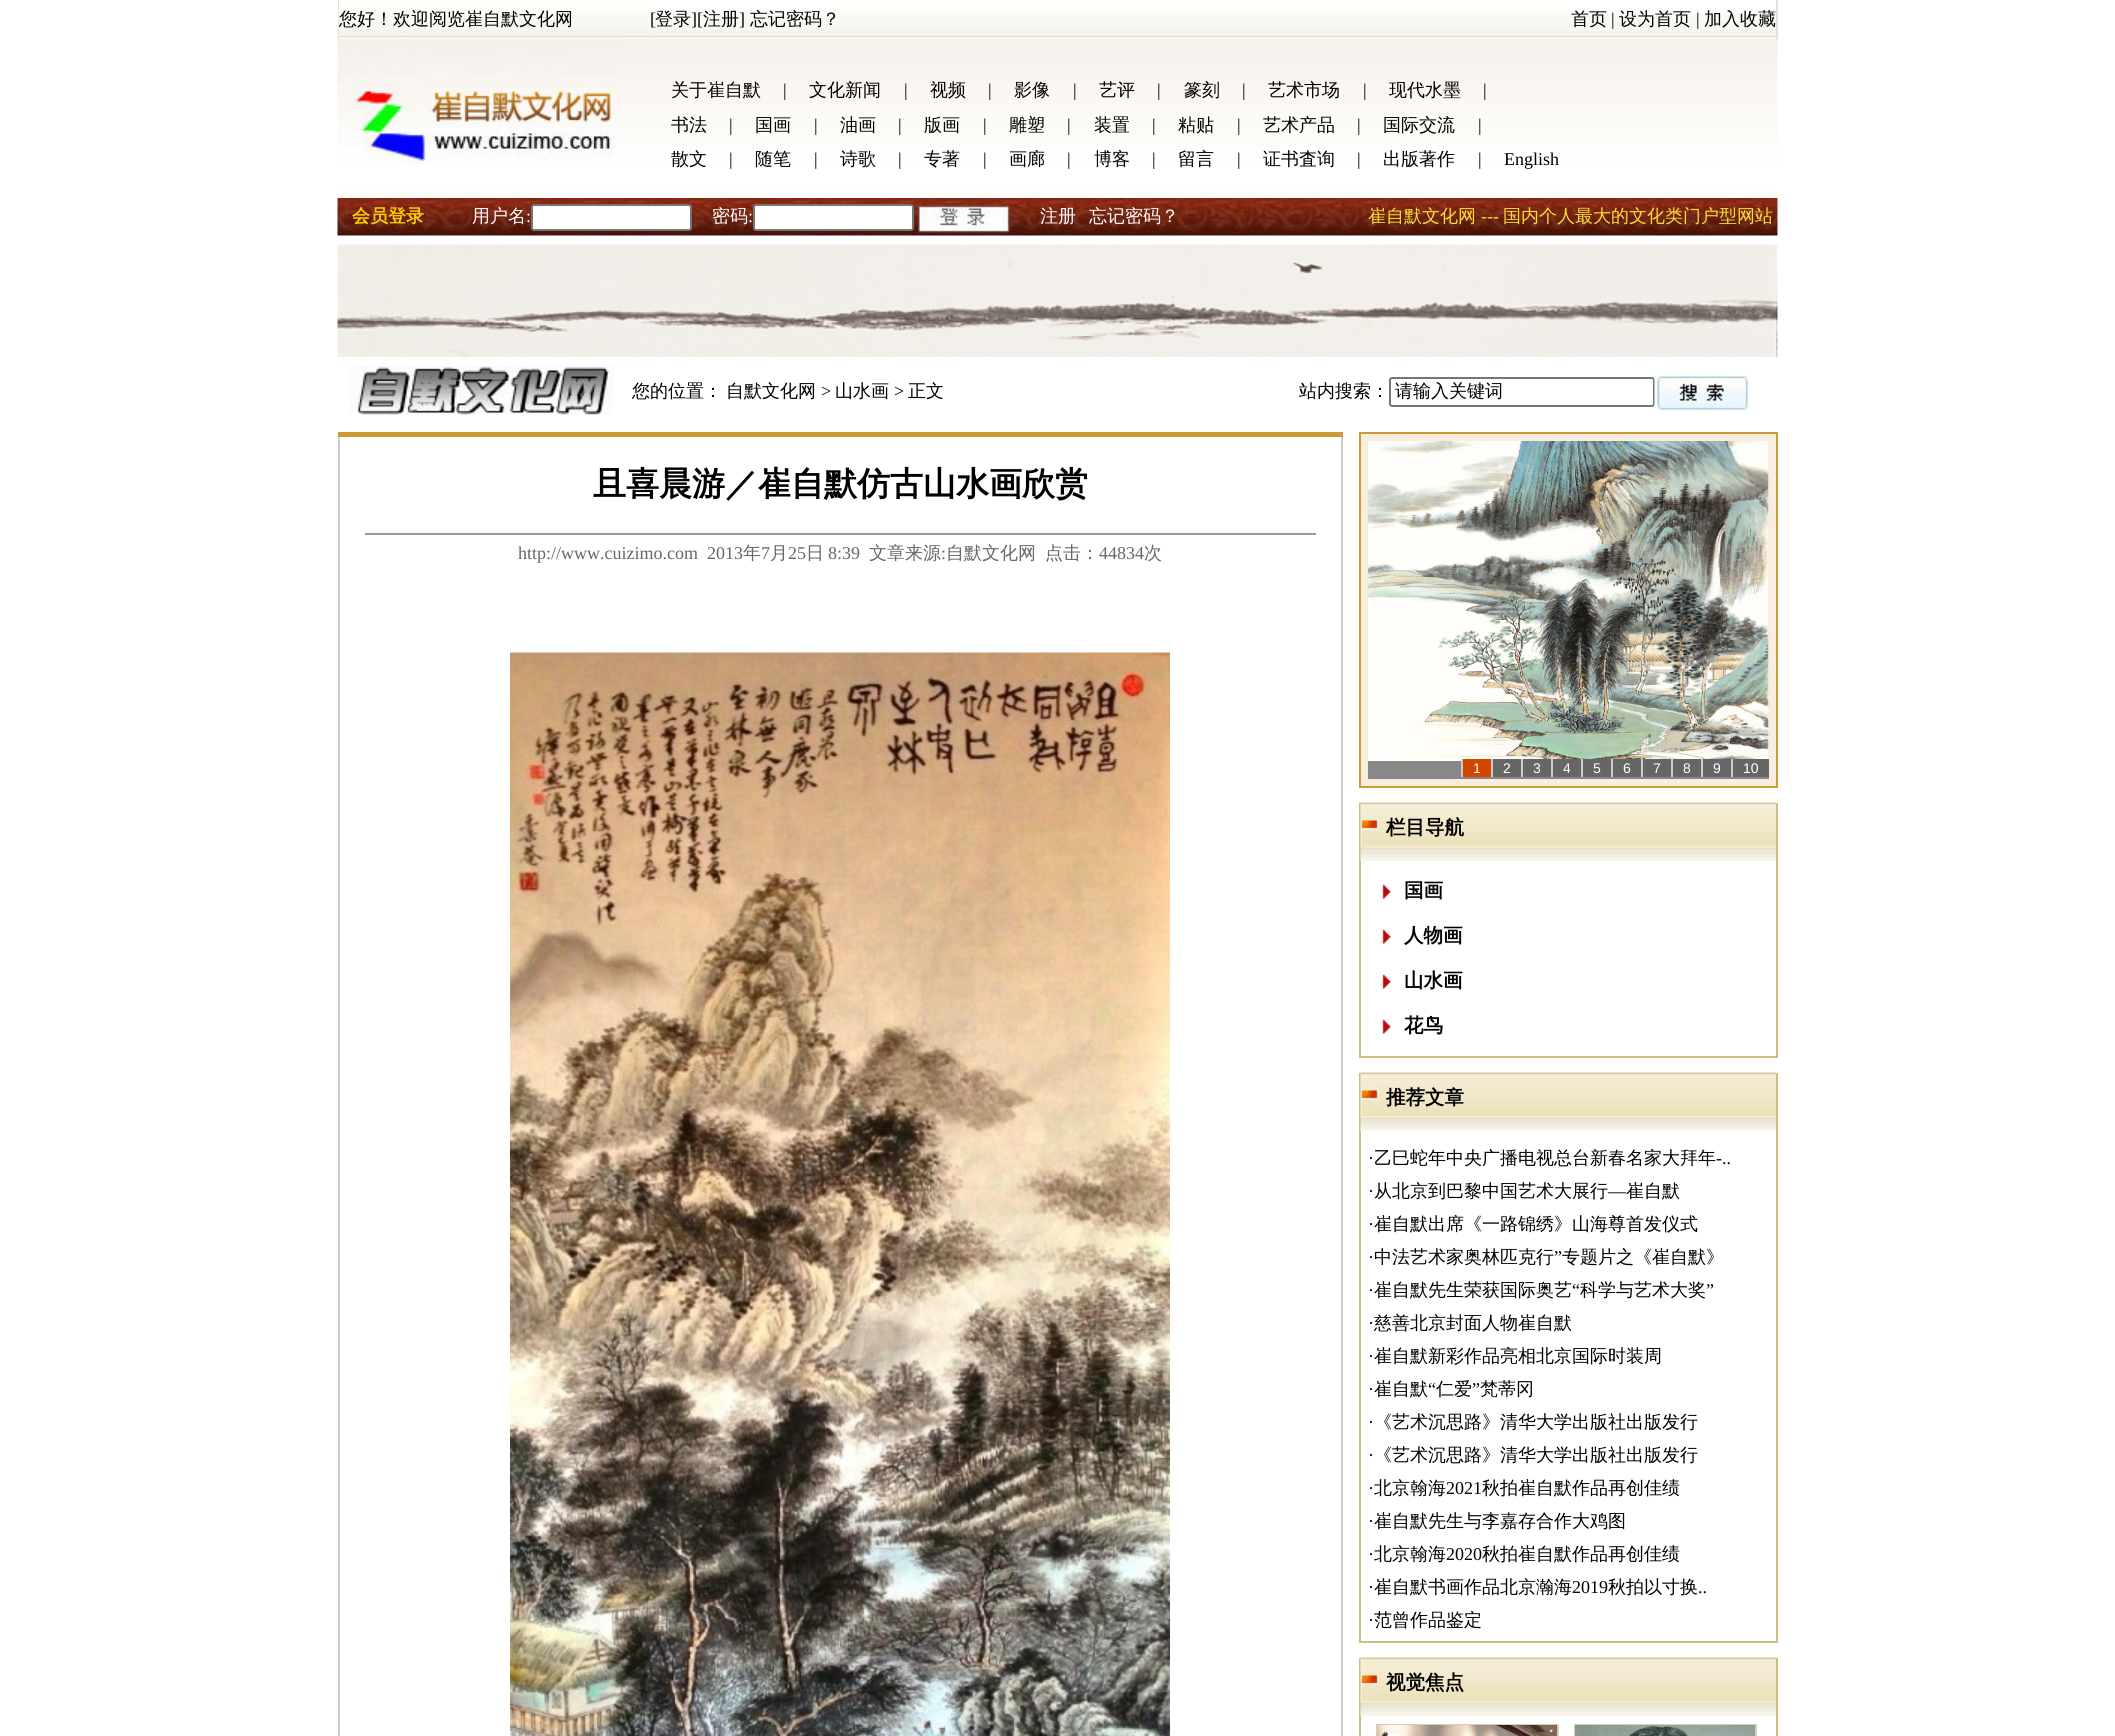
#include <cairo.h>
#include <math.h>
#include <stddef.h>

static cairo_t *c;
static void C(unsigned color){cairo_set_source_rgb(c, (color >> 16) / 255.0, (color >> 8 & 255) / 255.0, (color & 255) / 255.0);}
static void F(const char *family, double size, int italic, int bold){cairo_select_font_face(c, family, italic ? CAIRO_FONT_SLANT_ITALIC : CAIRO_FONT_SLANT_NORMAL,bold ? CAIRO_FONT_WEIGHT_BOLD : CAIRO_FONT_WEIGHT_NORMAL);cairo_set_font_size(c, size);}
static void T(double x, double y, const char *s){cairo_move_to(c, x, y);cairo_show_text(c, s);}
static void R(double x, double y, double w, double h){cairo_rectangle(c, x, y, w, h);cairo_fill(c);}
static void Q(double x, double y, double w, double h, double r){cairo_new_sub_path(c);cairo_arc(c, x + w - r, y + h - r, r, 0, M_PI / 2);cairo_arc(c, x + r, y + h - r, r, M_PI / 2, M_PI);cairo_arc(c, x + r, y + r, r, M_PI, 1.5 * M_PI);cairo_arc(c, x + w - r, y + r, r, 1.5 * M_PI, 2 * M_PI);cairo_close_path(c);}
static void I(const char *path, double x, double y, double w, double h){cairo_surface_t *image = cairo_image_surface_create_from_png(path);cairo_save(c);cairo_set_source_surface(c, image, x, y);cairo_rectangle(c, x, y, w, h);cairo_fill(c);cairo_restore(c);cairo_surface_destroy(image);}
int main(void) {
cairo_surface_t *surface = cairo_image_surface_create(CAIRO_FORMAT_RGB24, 2115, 1736);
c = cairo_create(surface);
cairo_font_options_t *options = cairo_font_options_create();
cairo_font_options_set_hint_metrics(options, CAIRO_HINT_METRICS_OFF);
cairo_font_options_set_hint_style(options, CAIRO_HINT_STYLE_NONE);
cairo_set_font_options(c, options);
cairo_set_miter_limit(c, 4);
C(0xffffff);
cairo_paint(c);
C(0xe4e1d8);
R(1776,0,2,39);
R(338,0,1,39);
I("1.png",339,0,311,39);
F("WenQuanYi Zen Hei Medium",18,0,0);
C(0x000000);
T(339,25,"您好！欢迎阅览崔自默文化网");
I("2.png",649,8,812,31);
F("Liberation Serif",18,0,0);
T(650,25,"[");
F("WenQuanYi Zen Hei Medium",18,0,0);
T(655,25,"登录");
F("Liberation Serif",18,0,0);
T(691,25,"][");
F("WenQuanYi Zen Hei Medium",18,0,0);
T(703,25,"注册");
F("Liberation Serif",18,0,0);
T(739,25,"]");
F("WenQuanYi Zen Hei Medium",18,0,0);
T(750,25,"忘记密码？");
I("3.png",1461,8,315,31);
T(1571,25,"首页");
F("Liberation Serif",18,0,0);
T(1611,25,"|");
F("WenQuanYi Zen Hei Medium",18,0,0);
T(1619,25,"设为首页");
F("Liberation Serif",18,0,0);
T(1696,25,"|");
F("WenQuanYi Zen Hei Medium",18,0,0);
T(1704,25,"加入收藏");
I("4.png",337,39,1441,158);
I("5.png",337,39,280,126);
T(671,96,"关于崔自默");
F("Liberation Serif",18,0,0);
T(783,96,"|");
F("WenQuanYi Zen Hei Medium",18,0,0);
T(809,96,"文化新闻");
F("Liberation Serif",18,0,0);
T(904,96,"|");
F("WenQuanYi Zen Hei Medium",18,0,0);
T(930,96,"视频");
F("Liberation Serif",18,0,0);
T(988,96,"|");
F("WenQuanYi Zen Hei Medium",18,0,0);
T(1014,96,"影像");
F("Liberation Serif",18,0,0);
T(1073,96,"|");
F("WenQuanYi Zen Hei Medium",18,0,0);
T(1099,96,"艺评");
F("Liberation Serif",18,0,0);
T(1157,96,"|");
F("WenQuanYi Zen Hei Medium",18,0,0);
T(1184,96,"篆刻");
F("Liberation Serif",18,0,0);
T(1242,96,"|");
F("WenQuanYi Zen Hei Medium",18,0,0);
T(1268,96,"艺术市场");
F("Liberation Serif",18,0,0);
T(1363,96,"|");
F("WenQuanYi Zen Hei Medium",18,0,0);
T(1389,96,"现代水墨");
F("Liberation Serif",18,0,0);
T(1483,96,"|");
F("WenQuanYi Zen Hei Medium",18,0,0);
T(671,131,"书法");
F("Liberation Serif",18,0,0);
T(729,131,"|");
F("WenQuanYi Zen Hei Medium",18,0,0);
T(755,131,"国画");
F("Liberation Serif",18,0,0);
T(814,131,"|");
F("WenQuanYi Zen Hei Medium",18,0,0);
T(840,131,"油画");
F("Liberation Serif",18,0,0);
T(898,131,"|");
F("WenQuanYi Zen Hei Medium",18,0,0);
T(924,131,"版画");
F("Liberation Serif",18,0,0);
T(983,131,"|");
F("WenQuanYi Zen Hei Medium",18,0,0);
T(1009,131,"雕塑");
F("Liberation Serif",18,0,0);
T(1067,131,"|");
F("WenQuanYi Zen Hei Medium",18,0,0);
T(1094,131,"装置");
F("Liberation Serif",18,0,0);
T(1152,131,"|");
F("WenQuanYi Zen Hei Medium",18,0,0);
T(1178,131,"粘贴");
F("Liberation Serif",18,0,0);
T(1237,131,"|");
F("WenQuanYi Zen Hei Medium",18,0,0);
T(1263,131,"艺术产品");
F("Liberation Serif",18,0,0);
T(1357,131,"|");
F("WenQuanYi Zen Hei Medium",18,0,0);
T(1383,131,"国际交流");
F("Liberation Serif",18,0,0);
T(1478,131,"|");
F("WenQuanYi Zen Hei Medium",18,0,0);
T(671,165,"散文");
F("Liberation Serif",18,0,0);
T(729,165,"|");
F("WenQuanYi Zen Hei Medium",18,0,0);
T(755,165,"随笔");
F("Liberation Serif",18,0,0);
T(814,165,"|");
F("WenQuanYi Zen Hei Medium",18,0,0);
T(840,165,"诗歌");
F("Liberation Serif",18,0,0);
T(898,165,"|");
F("WenQuanYi Zen Hei Medium",18,0,0);
T(924,165,"专著");
F("Liberation Serif",18,0,0);
T(983,165,"|");
F("WenQuanYi Zen Hei Medium",18,0,0);
T(1009,165,"画廊");
F("Liberation Serif",18,0,0);
T(1067,165,"|");
F("WenQuanYi Zen Hei Medium",18,0,0);
T(1094,165,"博客");
F("Liberation Serif",18,0,0);
T(1152,165,"|");
F("WenQuanYi Zen Hei Medium",18,0,0);
T(1178,165,"留言");
F("Liberation Serif",18,0,0);
T(1237,165,"|");
F("WenQuanYi Zen Hei Medium",18,0,0);
T(1263,165,"证书査询");
F("Liberation Serif",18,0,0);
T(1357,165,"|");
F("WenQuanYi Zen Hei Medium",18,0,0);
T(1383,165,"出版著作");
F("Liberation Serif",18,0,0);
T(1478,165,"|");
T(1504,165,"English");
I("6.png",337,198,1441,38);
F("WenQuanYi Zen Hei",18,0,1);
C(0xffcc00);
T(352,222,"会员登录");
F("WenQuanYi Zen Hei Medium",18,0,0);
C(0xffffff);
T(472,222,"用户名");
F("Liberation Serif",18,0,0);
T(526,222,":");
Q(532,205,159,25,2);
cairo_fill_preserve(c);
C(0x767676);
cairo_stroke(c);
F("WenQuanYi Zen Hei Medium",18,0,0);
C(0xffffff);
T(712,222,"密码");
F("Liberation Serif",18,0,0);
T(748,222,":");
Q(754,205,159,25,2);
cairo_fill_preserve(c);
C(0x767676);
cairo_stroke(c);
I("7.png",918,205,92,28);
F("WenQuanYi Zen Hei Medium",18,0,0);
C(0xffffff);
T(1040,222,"注册");
T(1089,222,"忘记密码？");
C(0xfbdf35);
T(1368,222,"崔自默文化网");
F("Liberation Serif",18,0,0);
T(1481,222,"---");
F("WenQuanYi Zen Hei Medium",18,0,0);
T(1503,222,"国内个人最大的文化类门户型网站");
I("8.png",337,244,1441,113);
I("9.png",349,366,265,49);
C(0x000000);
T(632,397,"您的位置：");
T(726,397,"自默文化网");
F("Liberation Serif",18,0,0);
T(821,397,">");
F("WenQuanYi Zen Hei Medium",18,0,0);
T(835,397,"山水画");
F("Liberation Serif",18,0,0);
T(894,397,">");
F("WenQuanYi Zen Hei Medium",18,0,0);
T(908,397,"正文");
T(1299,397,"站内搜索：");
Q(1390,378,264,28,2);
C(0x767676);
cairo_stroke(c);
C(0x000000);
T(1395,397,"请输入关键词");
I("10.png",1654,375,96,36);
C(0xcc9933);
R(338,432,1005,5);
C(0xcccccc);
R(1341,437,2,1299);
R(338,437,2,1299);
C(0x999999);
R(365,533,951,2);
F("WenQuanYi Zen Hei",33,0,1);
C(0x000000);
T(593,495,"且喜晨游／崔自默仿古山水画欣赏");
F("Liberation Serif",18,0,0);
C(0x666666);
T(518,559,"http://www.cuizimo.com  2013");
F("WenQuanYi Zen Hei Medium",18,0,0);
T(743,559,"年");
F("Liberation Serif",18,0,0);
T(761,559,"7");
F("WenQuanYi Zen Hei Medium",18,0,0);
T(770,559,"月");
F("Liberation Serif",18,0,0);
T(788,559,"25");
F("WenQuanYi Zen Hei Medium",18,0,0);
T(806,559,"日");
F("Liberation Serif",18,0,0);
T(828,559,"8:39");
F("WenQuanYi Zen Hei Medium",18,0,0);
T(869,559,"文章来源");
F("Liberation Serif",18,0,0);
T(941,559,":");
F("WenQuanYi Zen Hei Medium",18,0,0);
T(946,559,"自默文化网");
T(1045,559,"点击：");
F("Liberation Serif",18,0,0);
T(1099,559,"44834");
F("WenQuanYi Zen Hei Medium",18,0,0);
T(1144,559,"次");
I("11.png",510,652,660,1084);
C(0xf8edde);
cairo_rectangle(c,1360,433,417,354);
cairo_fill_preserve(c);
C(0xcc9933);
cairo_stroke(c);
I("12.png",1368,441,401,320);
C(0x888888);
R(1368,761,401,18);
C(0xd34600);
R(1463,759,28,18);
F("Liberation Sans",14,0,0);
C(0xffffff);
T(1473,773,"1");
C(0xcccccc);
R(1461,759,2,18);
C(0x666666);
R(1493,759,28,18);
C(0xffffff);
T(1503,773,"2");
C(0xcccccc);
R(1491,759,2,18);
C(0x666666);
R(1523,759,28,18);
C(0xffffff);
T(1533,773,"3");
C(0xcccccc);
R(1521,759,2,18);
C(0x666666);
R(1553,759,28,18);
C(0xffffff);
T(1563,773,"4");
C(0xcccccc);
R(1551,759,2,18);
C(0x666666);
R(1583,759,28,18);
C(0xffffff);
T(1593,773,"5");
C(0xcccccc);
R(1581,759,2,18);
C(0x666666);
R(1613,759,28,18);
C(0xffffff);
T(1623,773,"6");
C(0xcccccc);
R(1611,759,2,18);
C(0x666666);
R(1643,759,28,18);
C(0xffffff);
T(1653,773,"7");
C(0xcccccc);
R(1641,759,2,18);
C(0x666666);
R(1673,759,28,18);
C(0xffffff);
T(1683,773,"8");
C(0xcccccc);
R(1671,759,2,18);
C(0x666666);
R(1703,759,28,18);
C(0xffffff);
T(1713,773,"9");
C(0xcccccc);
R(1701,759,2,18);
C(0x666666);
R(1733,759,36,18);
C(0xffffff);
T(1743,773,"10");
C(0xcccccc);
R(1731,759,2,18);
C(0xcabe84);
R(1776,803,2,255);
R(1359,1056,419,2);
R(1359,803,2,255);
I("13.png",1360,802,416,59);
F("WenQuanYi Zen Hei",19.5,0,1);
C(0x000000);
T(1386,834,"栏目导航");
I("14.png",1381,883,10,17);
T(1404,897,"国画");
I("14.png",1381,928,10,17);
T(1404,942,"人物画");
I("14.png",1381,973,10,17);
T(1404,987,"山水画");
I("14.png",1381,1018,10,17);
T(1404,1032,"花鸟");
C(0xcabe84);
R(1776,1073,2,570);
R(1359,1641,419,2);
R(1359,1073,2,570);
I("13.png",1360,1072,416,59);
C(0x000000);
T(1386,1104,"推荐文章");
F("Liberation Serif",18,0,0);
T(1368,1164,"·");
F("WenQuanYi Zen Hei Medium",18,0,0);
T(1374,1164,"乙巳蛇年中央广播电视总台新春名家大拜年");
F("Liberation Serif",18,0,0);
T(1716,1164,"-..");
T(1368,1197,"·");
F("WenQuanYi Zen Hei Medium",18,0,0);
T(1374,1197,"从北京到巴黎中国艺术大展行");
F("Liberation Serif",18,0,0);
T(1608,1197,"—");
F("WenQuanYi Zen Hei Medium",18,0,0);
T(1626,1197,"崔自默");
F("Liberation Serif",18,0,0);
T(1368,1230,"·");
F("WenQuanYi Zen Hei Medium",18,0,0);
T(1374,1230,"崔自默出席《一路锦绣》山海尊首发仪式");
T(1374,1263,"中法艺术家奥林匹克行");
F("Liberation Serif",18,0,0);
T(1554,1263,"”");
F("WenQuanYi Zen Hei Medium",18,0,0);
T(1562,1263,"专题片之《崔自默》");
F("Liberation Serif",18,0,0);
T(1368,1263,"·");
F("WenQuanYi Zen Hei Medium",18,0,0);
T(1374,1296,"崔自默先生荣获国际奥艺");
F("Liberation Serif",18,0,0);
T(1572,1296,"“");
F("WenQuanYi Zen Hei Medium",18,0,0);
T(1580,1296,"科学与艺术大奖");
F("Liberation Serif",18,0,0);
T(1706,1296,"”");
T(1368,1296,"·");
T(1368,1329,"·");
F("WenQuanYi Zen Hei Medium",18,0,0);
T(1374,1329,"慈善北京封面人物崔自默");
F("Liberation Serif",18,0,0);
T(1368,1362,"·");
F("WenQuanYi Zen Hei Medium",18,0,0);
T(1374,1362,"崔自默新彩作品亮相北京国际时装周");
T(1374,1395,"崔自默");
F("Liberation Serif",18,0,0);
T(1428,1395,"“");
F("WenQuanYi Zen Hei Medium",18,0,0);
T(1436,1395,"仁爱");
F("Liberation Serif",18,0,0);
T(1472,1395,"”");
F("WenQuanYi Zen Hei Medium",18,0,0);
T(1480,1395,"梵蒂冈");
F("Liberation Serif",18,0,0);
T(1368,1395,"·");
T(1368,1428,"·");
F("WenQuanYi Zen Hei Medium",18,0,0);
T(1374,1428,"《艺术沉思路》清华大学出版社出版发行");
F("Liberation Serif",18,0,0);
T(1368,1461,"·");
F("WenQuanYi Zen Hei Medium",18,0,0);
T(1374,1461,"《艺术沉思路》清华大学出版社出版发行");
F("Liberation Serif",18,0,0);
T(1368,1494,"·");
F("WenQuanYi Zen Hei Medium",18,0,0);
T(1374,1494,"北京翰海");
F("Liberation Serif",18,0,0);
T(1446,1494,"2021");
F("WenQuanYi Zen Hei Medium",18,0,0);
T(1482,1494,"秋拍崔自默作品再创佳绩");
F("Liberation Serif",18,0,0);
T(1368,1527,"·");
F("WenQuanYi Zen Hei Medium",18,0,0);
T(1374,1527,"崔自默先生与李嘉存合作大鸡图");
F("Liberation Serif",18,0,0);
T(1368,1560,"·");
F("WenQuanYi Zen Hei Medium",18,0,0);
T(1374,1560,"北京翰海");
F("Liberation Serif",18,0,0);
T(1446,1560,"2020");
F("WenQuanYi Zen Hei Medium",18,0,0);
T(1482,1560,"秋拍崔自默作品再创佳绩");
F("Liberation Serif",18,0,0);
T(1368,1593,"·");
F("WenQuanYi Zen Hei Medium",18,0,0);
T(1374,1593,"崔自默书画作品北京瀚海");
F("Liberation Serif",18,0,0);
T(1572,1593,"2019");
F("WenQuanYi Zen Hei Medium",18,0,0);
T(1608,1593,"秋拍以寸换");
F("Liberation Serif",18,0,0);
T(1698,1593,"..");
T(1368,1626,"·");
F("WenQuanYi Zen Hei Medium",18,0,0);
T(1374,1626,"范曾作品鉴定");
C(0xcabe84);
R(1776,1658,2,78);
R(1359,1658,2,78);
I("13.png",1360,1657,416,59);
F("WenQuanYi Zen Hei",19.5,0,1);
C(0x000000);
T(1386,1689,"视觉焦点");
cairo_rectangle(c,1377,1725,181,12);
C(0xd9cdb7);
cairo_stroke(c);
I("15.png",1377,1725,180,11);
cairo_rectangle(c,1575,1725,181,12);
cairo_stroke(c);
I("16.png",1575,1725,180,11);
cairo_surface_write_to_png(surface, "o.png");
cairo_font_options_destroy(options);
cairo_destroy(c);
cairo_surface_destroy(surface);
return 0;
}
